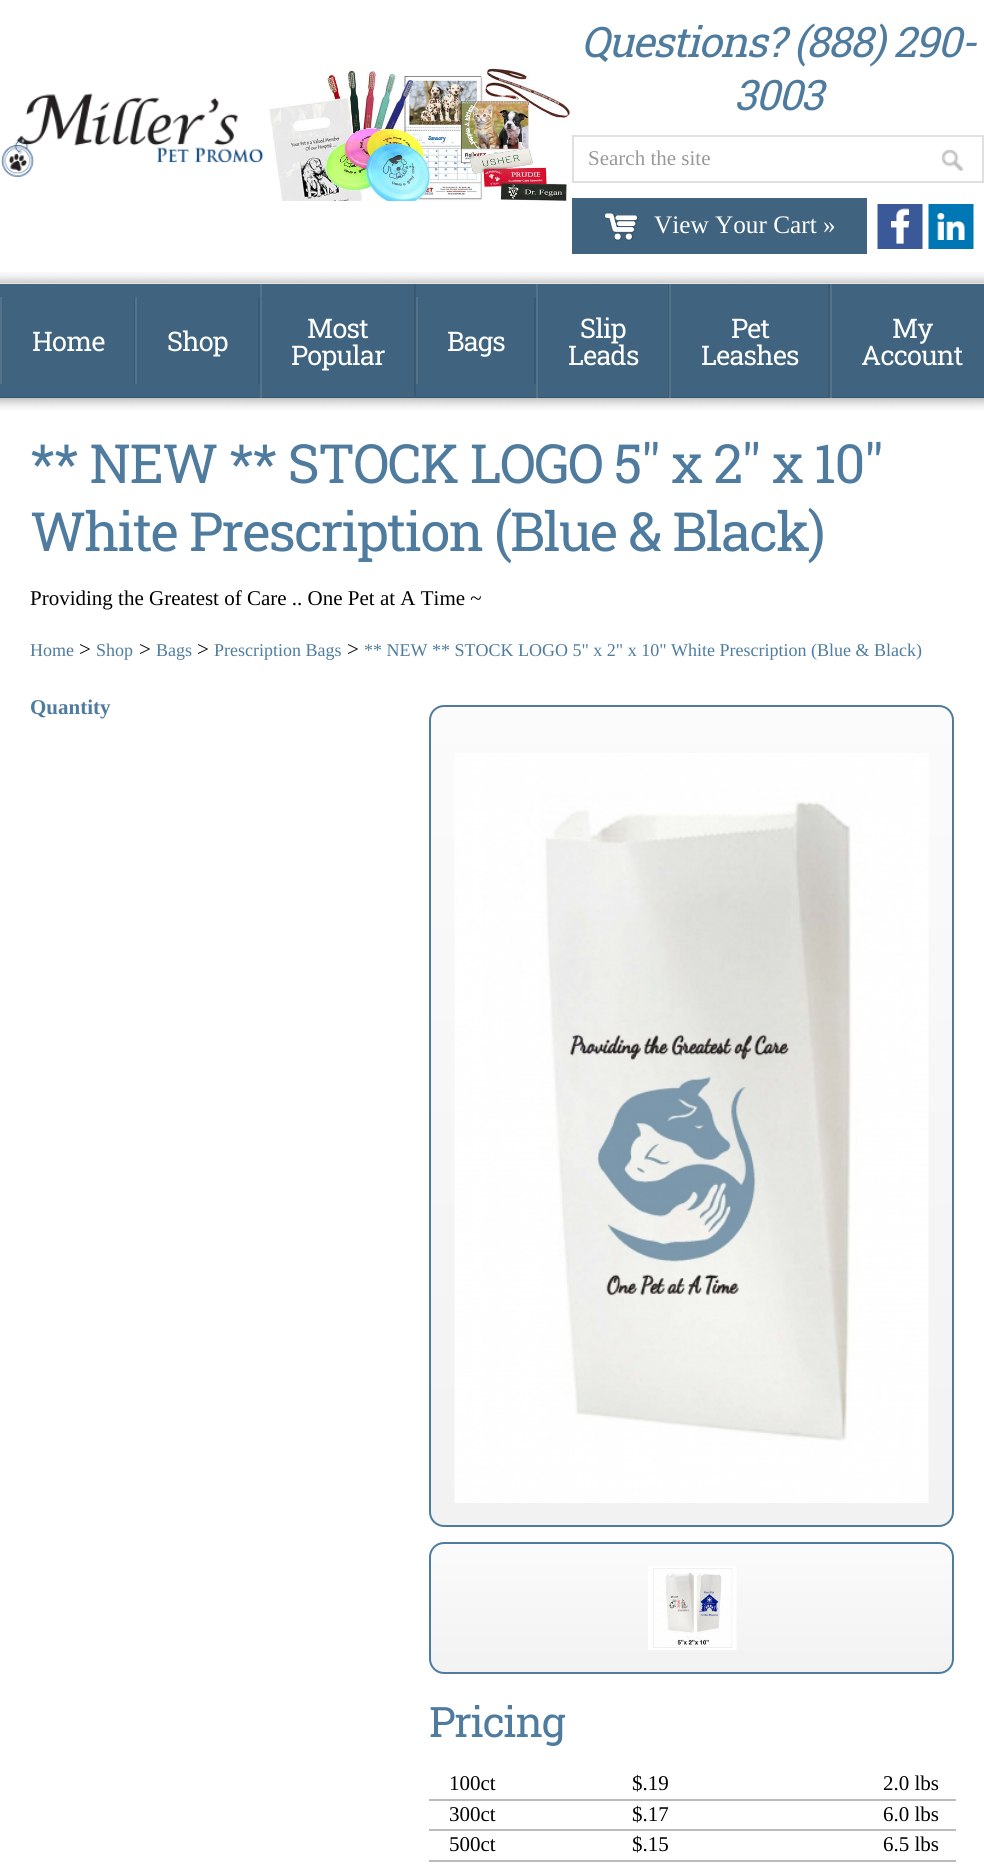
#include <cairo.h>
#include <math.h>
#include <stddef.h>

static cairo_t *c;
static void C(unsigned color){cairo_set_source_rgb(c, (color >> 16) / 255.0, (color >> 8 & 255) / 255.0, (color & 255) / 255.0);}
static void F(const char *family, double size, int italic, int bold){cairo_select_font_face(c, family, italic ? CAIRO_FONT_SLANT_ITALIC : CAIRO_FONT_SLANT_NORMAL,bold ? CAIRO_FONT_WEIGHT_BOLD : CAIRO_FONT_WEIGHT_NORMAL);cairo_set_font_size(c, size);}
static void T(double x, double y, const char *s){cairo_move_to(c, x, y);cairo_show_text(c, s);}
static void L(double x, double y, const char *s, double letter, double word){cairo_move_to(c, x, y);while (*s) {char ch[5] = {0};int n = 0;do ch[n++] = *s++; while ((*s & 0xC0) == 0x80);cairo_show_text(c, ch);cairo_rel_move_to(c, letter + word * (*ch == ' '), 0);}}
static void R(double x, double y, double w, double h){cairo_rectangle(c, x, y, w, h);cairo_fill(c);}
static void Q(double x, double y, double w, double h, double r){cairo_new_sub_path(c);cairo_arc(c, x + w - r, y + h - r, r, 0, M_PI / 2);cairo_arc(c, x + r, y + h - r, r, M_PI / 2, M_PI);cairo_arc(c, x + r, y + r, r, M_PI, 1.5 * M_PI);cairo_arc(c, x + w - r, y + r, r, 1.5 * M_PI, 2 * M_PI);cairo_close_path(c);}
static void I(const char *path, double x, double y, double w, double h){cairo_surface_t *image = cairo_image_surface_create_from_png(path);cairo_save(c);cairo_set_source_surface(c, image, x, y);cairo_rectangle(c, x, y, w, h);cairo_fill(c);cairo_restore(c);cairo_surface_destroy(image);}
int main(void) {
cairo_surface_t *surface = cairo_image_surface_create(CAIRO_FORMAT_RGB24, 984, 1865);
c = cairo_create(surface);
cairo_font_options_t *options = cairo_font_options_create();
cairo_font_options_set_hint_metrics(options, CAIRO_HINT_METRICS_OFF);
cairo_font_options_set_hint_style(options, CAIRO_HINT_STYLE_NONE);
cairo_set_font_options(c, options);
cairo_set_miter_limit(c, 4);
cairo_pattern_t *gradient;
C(0xffffff);
cairo_paint(c);
I("1.png",0,272,984,12);
I("2.png",1,93,263,84);
I("3.png",269,67,302,134);
F("Roboto Slab",42,1,0);
C(0x4f7c9e);
L(581,57,"Questions? (888) 290-",-1.25,0);
L(734,110,"3003",-1.25,0);
cairo_rectangle(c,573,136,410,46);
C(0xe0e0e0);
cairo_stroke(c);
F("Liberation Serif",21,0,0);
C(0x999999);
T(588,165,"Search the site");
I("4.png",941,149,23,22);
C(0x40647f);
R(572,198,295,56);
I("5.png",604,212,34,29);
F("Liberation Serif",25.25,0,0);
C(0xffffff);
T(654,233,"View Your Cart »");
I("6.png",877,204,46,45);
I("7.png",928,204,46,45);
C(0x40647f);
R(0,284,984,114);
C(0x395a72);
R(134,297,1,87);
C(0x53738b);
R(0,297,2,87);
F("Roboto Slab",27,0,0);
C(0xffffff);
L(32,351,"Home",-.75,0);
C(0x395a72);
R(258,297,2,87);
C(0x53738b);
R(135,297,2,87);
C(0xffffff);
L(167,351,"Shop",-.75,0);
I("8.png",0,397,984,13);
C(0x395a72);
R(414,284,2,114);
C(0x53738b);
R(260,284,2,114);
C(0xffffff);
L(307,338,"Most",-.75,0);
L(291,365,"Popular",-.75,0);
C(0x395a72);
R(534,297,2,87);
C(0x53738b);
R(416,297,2,87);
C(0xffffff);
L(447,351,"Bags",-.75,0);
C(0x395a72);
R(668,284,1,114);
C(0x53738b);
R(536,284,2,114);
C(0xffffff);
L(580,338,"Slip",-.75,0);
L(568,365,"Leads",-.75,0);
C(0x395a72);
R(828,284,2,114);
C(0x53738b);
R(669,284,2,114);
C(0xffffff);
L(731,338,"Pet",-.75,0);
L(701,365,"Leashes",-.75,0);
C(0x53738b);
R(830,284,2,114);
C(0xffffff);
L(892,338,"My",-.75,0);
L(861,365,"Account",-.75,0);
F("Roboto Slab",54,0,0);
C(0x4f7c9e);
L(30,483,"** NEW ** STOCK LOGO 5\" x 2\" x 10\"",-1.6,0);
L(30,551,"White Prescription (Blue & Black)",-1.6,0);
F("Liberation Serif",21,0,0);
C(0x000000);
T(30,605,"Providing the Greatest of Care .. One Pet at A Time ~");
F("Liberation Serif",18,0,0);
C(0x4f7c9e);
T(30,656,"Home");
F("Liberation Serif",21,0,0);
C(0x000000);
T(79,656,">");
F("Liberation Serif",18,0,0);
C(0x4f7c9e);
T(96,656,"Shop");
F("Liberation Serif",21,0,0);
C(0x000000);
T(139,656,">");
F("Liberation Serif",18,0,0);
C(0x4f7c9e);
T(156,656,"Bags");
F("Liberation Serif",21,0,0);
C(0x000000);
T(197,656,">");
F("Liberation Serif",18,0,0);
C(0x4f7c9e);
T(214,656,"Prescription Bags");
F("Liberation Serif",21,0,0);
C(0x000000);
T(347,656,">");
F("Liberation Serif",18,0,0);
C(0x4f7c9e);
T(364,656,"** NEW ** STOCK LOGO 5\" x 2\" x 10\" White Prescription (Blue & Black)");
F("Liberation Serif",21,0,1);
T(30,714,"Quantity");
cairo_save(c);
Q(429,705,525,822,15);
cairo_clip(c);
gradient = cairo_pattern_create_linear(431,707,431,1526);
cairo_pattern_add_color_stop_rgba(gradient,0,0.984,0.984,0.984,1);
cairo_pattern_add_color_stop_rgba(gradient,1,0.949,0.949,0.949,1);
cairo_set_source(c,gradient);
cairo_pattern_destroy(gradient);
R(429,707,525,819);
cairo_restore(c);
Q(430,706,523,820,14);
cairo_stroke(c);
I("9.png",454,753,475,750);
cairo_save(c);
Q(429,1542,525,132,15);
cairo_clip(c);
gradient = cairo_pattern_create_linear(431,1544,431,1673);
cairo_pattern_add_color_stop_rgba(gradient,0,0.984,0.984,0.984,1);
cairo_pattern_add_color_stop_rgba(gradient,1,0.949,0.949,0.949,1);
cairo_set_source(c,gradient);
cairo_pattern_destroy(gradient);
R(429,1544,525,129);
cairo_restore(c);
Q(430,1543,523,130,14);
cairo_stroke(c);
I("10.png",648,1566,89,84);
F("Roboto Slab",42,0,0);
L(429,1737,"Pricing",-1.25,0);
F("Liberation Serif",21,0,0);
C(0x000000);
T(449,1790,"100ct");
T(632,1790,"$.19");
C(0xbbbbbb);
R(429,1799,527,2);
C(0x000000);
T(883,1790,"2.0 lbs");
T(449,1821,"300ct");
T(632,1821,"$.17");
C(0xbbbbbb);
R(429,1829,527,2);
C(0x000000);
T(883,1821,"6.0 lbs");
T(449,1851,"500ct");
T(632,1851,"$.15");
C(0xbbbbbb);
R(429,1860,527,2);
C(0x000000);
T(883,1851,"6.5 lbs");
cairo_surface_write_to_png(surface, "o.png");
cairo_font_options_destroy(options);
cairo_destroy(c);
cairo_surface_destroy(surface);
return 0;
}
